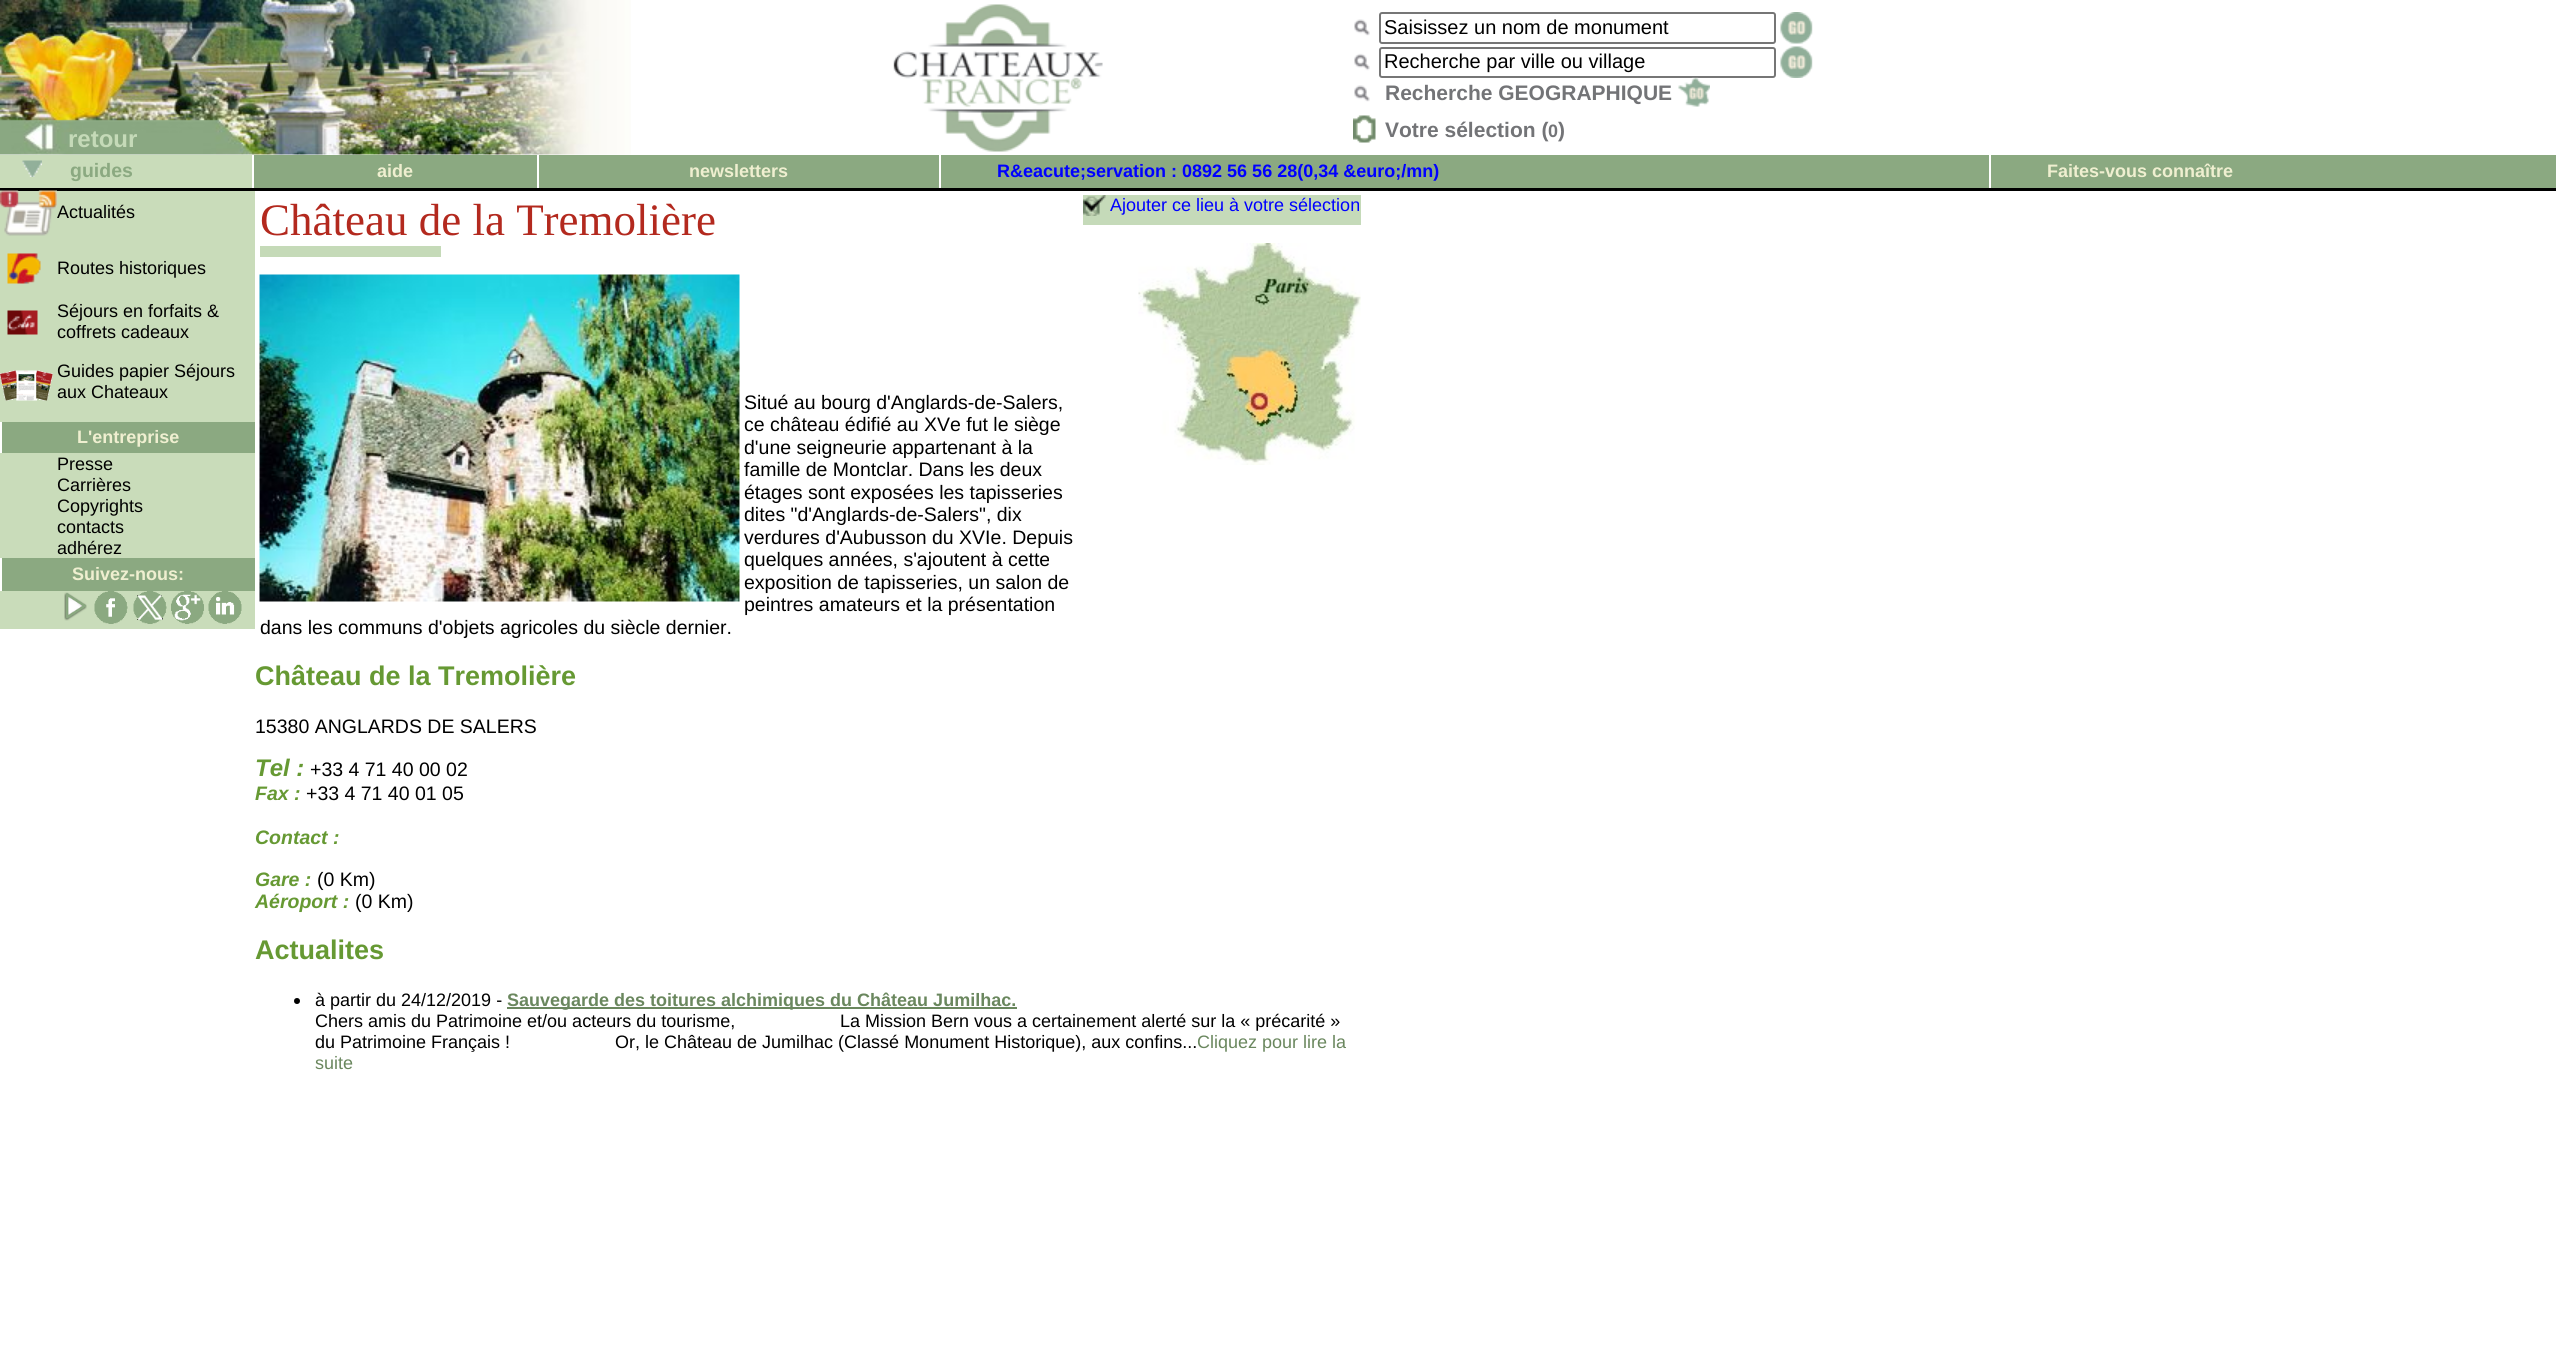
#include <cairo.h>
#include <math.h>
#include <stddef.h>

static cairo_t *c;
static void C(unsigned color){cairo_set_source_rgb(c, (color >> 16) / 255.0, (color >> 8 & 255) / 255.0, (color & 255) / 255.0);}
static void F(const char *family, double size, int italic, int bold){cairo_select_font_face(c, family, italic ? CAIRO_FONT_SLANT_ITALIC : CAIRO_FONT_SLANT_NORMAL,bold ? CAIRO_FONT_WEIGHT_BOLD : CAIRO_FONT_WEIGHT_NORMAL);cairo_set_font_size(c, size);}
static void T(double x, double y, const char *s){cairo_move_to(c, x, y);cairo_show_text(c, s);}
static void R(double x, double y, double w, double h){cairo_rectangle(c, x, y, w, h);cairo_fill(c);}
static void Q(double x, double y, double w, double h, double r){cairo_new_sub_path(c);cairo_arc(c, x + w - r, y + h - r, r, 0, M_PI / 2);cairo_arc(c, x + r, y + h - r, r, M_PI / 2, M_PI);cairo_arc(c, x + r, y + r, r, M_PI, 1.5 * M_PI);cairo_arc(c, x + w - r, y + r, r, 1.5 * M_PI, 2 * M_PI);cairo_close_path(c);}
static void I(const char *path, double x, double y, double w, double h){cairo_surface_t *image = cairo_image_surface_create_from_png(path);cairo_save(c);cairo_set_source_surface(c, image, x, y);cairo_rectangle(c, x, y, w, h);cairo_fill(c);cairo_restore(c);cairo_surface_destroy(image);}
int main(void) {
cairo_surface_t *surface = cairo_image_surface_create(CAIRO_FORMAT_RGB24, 2556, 1359);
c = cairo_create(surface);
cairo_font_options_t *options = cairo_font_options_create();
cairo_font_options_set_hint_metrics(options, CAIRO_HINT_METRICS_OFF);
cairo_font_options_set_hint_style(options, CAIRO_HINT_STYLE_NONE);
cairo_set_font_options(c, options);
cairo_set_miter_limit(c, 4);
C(0xffffff);
cairo_paint(c);
I("1.png",0,0,631,155);
F("Liberation Sans",24,0,1);
C(0xc5dab8);
T(68,147,"retour");
I("2.png",893,4,210,148);
I("3.png",1354,19,16,17);
Q(1380,13,395,30,2);
C(0x767676);
cairo_stroke(c);
F("Liberation Sans",20,0,0);
C(0x000000);
T(1384,34,"Saisissez un nom de monument");
I("4.png",1780,12,33,32);
I("5.png",1354,53,16,18);
Q(1380,48,395,29,2);
C(0x767676);
cairo_stroke(c);
C(0x000000);
T(1384,68,"Recherche par ville ou village");
I("6.png",1780,46,33,32);
I("3.png",1354,85,16,17);
F("Liberation Sans",21,0,1);
C(0x737477);
T(1385,100,"Recherche GEOGRAPHIQUE");
I("7.png",1678,77,32,30);
I("8.png",1353,115,23,28);
T(1385,137,"Votre sélection (");
F("Liberation Sans",18,0,1);
T(1548,137,"0");
F("Liberation Sans",21,0,1);
T(1558,137,")");
C(0xc9dcba);
R(0,155,252,33);
I("9.png",22,160,20,17);
F("Liberation Sans",19.5,0,1);
C(0x8ba981);
T(70,177,"guides");
R(254,155,283,33);
F("Liberation Sans",18,0,1);
C(0xefefd0);
T(377,177,"aide");
C(0x8ba981);
R(539,155,400,33);
C(0xefefd0);
T(689,177,"newsletters");
C(0x8ba981);
R(941,155,1048,33);
C(0x0000ff);
T(997,177,"R&eacute;servation : 0892 56 56 28(0,34 &euro;/mn)");
C(0x8ba981);
R(1991,155,565,33);
C(0xefefd0);
T(2047,177,"Faites-vous connaître");
C(0x000000);
R(0,188,2556,3);
C(0xc9dcba);
R(0,191,255,438);
I("10.png",0,190,57,46);
F("Liberation Sans",18,0,0);
C(0x000000);
T(57,218,"Actualités");
I("11.png",7,253,34,31);
T(57,274,"Routes historiques");
I("12.png",7,310,31,25);
T(57,317,"Séjours en forfaits &");
T(57,338,"coffrets cadeaux");
I("13.png",0,370,53,31);
T(57,377,"Guides papier Séjours");
T(57,398,"aux Chateaux");
C(0x8ba981);
R(2,422,253,31);
C(0xffffff);
R(0,422,2,31);
F("Liberation Sans",18,0,1);
C(0xefefd0);
T(77,443,"L'entreprise");
F("Liberation Sans",18,0,0);
C(0x000000);
T(57,470,"Presse");
T(57,491,"Carrières");
T(57,512,"Copyrights");
T(57,533,"contacts");
T(57,554,"adhérez");
C(0x8ba981);
R(2,558,253,33);
C(0xffffff);
R(0,558,2,33);
F("Liberation Sans",18,0,1);
C(0xefefd0);
T(72,580,"Suivez-nous:");
I("14.png",64,592,23,29);
I("15.png",94,591,34,33);
I("16.png",133,591,34,33);
I("17.png",171,591,33,33);
I("18.png",208,591,34,33);
F("Liberation Serif",45,0,0);
C(0xb3291e);
T(260,235,"Château de la Tremolière");
C(0xc5dab8);
R(260,246,181,11);
I("19.png",259,274,481,328);
F("Liberation Sans",19.5,0,0);
C(0x000000);
T(744,409,"Situé au bourg d'Anglards-de-Salers,");
T(744,431,"ce château édifié au XVe fut le siège");
T(744,454,"d'une seigneurie appartenant à la");
T(744,476,"famille de Montclar. Dans les deux");
T(744,499,"étages sont exposées les tapisseries");
T(744,521,"dites \"d'Anglards-de-Salers\", dix");
T(744,544,"verdures d'Aubusson du XVIe. Depuis");
T(744,566,"quelques années, s'ajoutent à cette");
T(744,589,"exposition de tapisseries, un salon de");
T(744,611,"peintres amateurs et la présentation");
T(260,634,"dans les communs d'objets agricoles du siècle dernier.");
C(0xc5dab9);
R(1083,195,278,30);
I("20.png",1083,195,23,21);
F("Liberation Sans",18,0,0);
C(0x0000ff);
T(1110,211,"Ajouter ce lieu à votre sélection");
I("21.png",1138,243,223,222);
F("Liberation Sans",27,0,1);
C(0x669933);
T(255,685,"Château de la Tremolière");
F("Liberation Sans",19.5,0,0);
C(0x000000);
T(255,733,"15380 ANGLARDS DE SALERS");
F("Liberation Sans",24,1,1);
C(0x669933);
T(255,776,"Tel :");
F("Liberation Sans",19.5,0,0);
C(0x000000);
T(310,776,"+33 4 71 40 00 02");
F("Liberation Sans",19.5,1,1);
C(0x669933);
T(255,800,"Fax :");
F("Liberation Sans",19.5,0,0);
C(0x000000);
T(306,800,"+33 4 71 40 01 05");
F("Liberation Sans",19.5,1,1);
C(0x669933);
T(255,844,"Contact :");
T(255,886,"Gare :");
F("Liberation Sans",19.5,0,0);
C(0x000000);
T(317,886,"(0 Km)");
F("Liberation Sans",19.5,1,1);
C(0x669933);
T(255,908,"Aéroport :");
F("Liberation Sans",19.5,0,0);
C(0x000000);
T(355,908,"(0 Km)");
F("Liberation Sans",27,0,1);
C(0x669933);
T(255,959,"Actualites");
C(0x000000);
cairo_new_path(c);
cairo_arc(c,297,1001,3,0,2 * M_PI);
cairo_fill(c);
F("Liberation Sans",18,0,0);
T(315,1006,"à partir du 24/12/2019 -");
C(0x6a875e);
R(507,1007,510,2);
F("Liberation Sans",18,0,1);
T(507,1006,"Sauvegarde des toitures alchimiques du Château Jumilhac.");
F("Liberation Sans",18,0,0);
C(0x000000);
T(315,1027,"Chers amis du Patrimoine et/ou acteurs du tourisme,");
T(840,1027,"La Mission Bern vous a certainement alerté sur la « précarité »");
T(315,1048,"du Patrimoine Français !");
T(615,1048,"Or, le Château de Jumilhac (Classé Monument Historique), aux confins...");
C(0x6a875e);
T(1197,1048,"Cliquez pour lire la");
T(315,1069,"suite");
cairo_surface_write_to_png(surface, "o.png");
cairo_font_options_destroy(options);
cairo_destroy(c);
cairo_surface_destroy(surface);
return 0;
}
